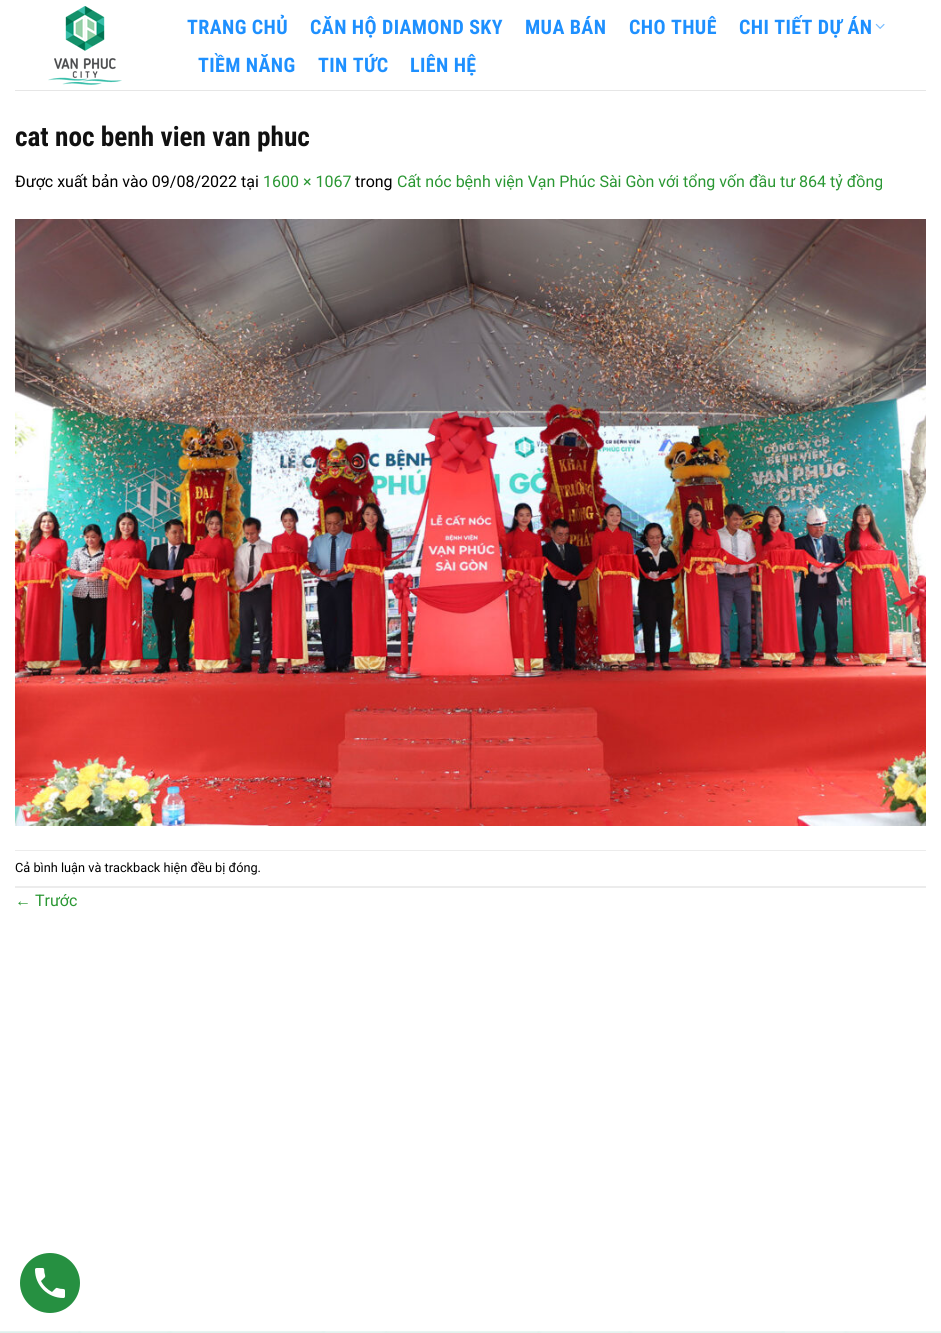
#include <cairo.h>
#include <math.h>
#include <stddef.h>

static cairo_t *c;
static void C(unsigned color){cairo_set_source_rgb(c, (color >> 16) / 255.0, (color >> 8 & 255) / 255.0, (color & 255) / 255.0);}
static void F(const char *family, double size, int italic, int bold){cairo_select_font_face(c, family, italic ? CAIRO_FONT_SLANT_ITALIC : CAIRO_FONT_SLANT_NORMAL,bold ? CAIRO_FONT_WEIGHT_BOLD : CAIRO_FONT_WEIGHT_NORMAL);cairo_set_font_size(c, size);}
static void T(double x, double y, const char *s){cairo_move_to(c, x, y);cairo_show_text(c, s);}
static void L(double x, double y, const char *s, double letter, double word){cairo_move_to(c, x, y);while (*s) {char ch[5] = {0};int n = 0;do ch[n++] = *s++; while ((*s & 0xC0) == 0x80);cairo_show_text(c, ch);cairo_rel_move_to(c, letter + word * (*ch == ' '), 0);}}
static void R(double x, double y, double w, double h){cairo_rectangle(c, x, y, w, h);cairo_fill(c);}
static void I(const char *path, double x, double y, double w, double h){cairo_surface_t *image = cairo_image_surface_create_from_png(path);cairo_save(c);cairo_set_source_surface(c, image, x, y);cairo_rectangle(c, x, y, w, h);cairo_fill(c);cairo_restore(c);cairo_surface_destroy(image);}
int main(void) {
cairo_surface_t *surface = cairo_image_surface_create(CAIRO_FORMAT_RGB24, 941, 1333);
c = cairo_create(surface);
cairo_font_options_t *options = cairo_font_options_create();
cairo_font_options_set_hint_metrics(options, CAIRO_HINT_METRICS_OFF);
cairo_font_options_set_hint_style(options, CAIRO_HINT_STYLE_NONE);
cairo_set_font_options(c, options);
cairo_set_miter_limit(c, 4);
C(0xffffff);
cairo_paint(c);
I("1.png",48,6,74,79);
F("Roboto Condensed",20,0,1);
C(0x1e90ff);
L(187,34,"TRANG CHỦ",.4,0);
L(310,34,"CĂN HỘ DIAMOND SKY",.4,0);
L(525,34,"MUA BÁN",.4,0);
L(629,34,"CHO THUÊ",.4,0);
L(739,34,"CHI TIẾT DỰ ÁN",.4,0);
I("2.png",875,23,10,6);
L(198,72,"TIỀM NĂNG",.4,0);
L(318,72,"TIN TỨC",.4,0);
L(410,72,"LIÊN HỆ",.4,0);
C(0xe6e6e6);
R(15,90,911,1);
F("Roboto Condensed",27.25,0,1);
C(0x111111);
T(15,146,"cat noc benh vien van phuc");
F("Roboto",16,0,0);
C(0x000000);
T(15,187,"Được xuất bản vào 09/08/2022 tại");
C(0x2a9733);
T(263,187,"1600 × 1067");
C(0x000000);
T(355,187,"trong");
C(0x2a9733);
T(397,187,"Cất nóc bệnh viện Vạn Phúc Sài Gòn với tổng vốn đầu tư 864 tỷ đồng");
I("3.png",15,219,911,607);
C(0xececec);
R(15,850,911,1);
R(15,886,911,2);
F("Roboto",12.75,0,0);
C(0x000000);
T(15,872,"Cả bình luận và trackback hiện đều bị đóng.");
F("Liberation Sans",16,0,0);
C(0x2a9733);
T(15,906,"←");
F("Roboto",16,0,0);
T(35,906,"Trước");
I("4.png",0,1331,941,2);
C(0x269041);
cairo_arc(c,50,1283,30,0,2 * M_PI);
cairo_fill(c);
I("5.png",35,1268,30,30);
cairo_surface_write_to_png(surface, "o.png");
cairo_font_options_destroy(options);
cairo_destroy(c);
cairo_surface_destroy(surface);
return 0;
}
